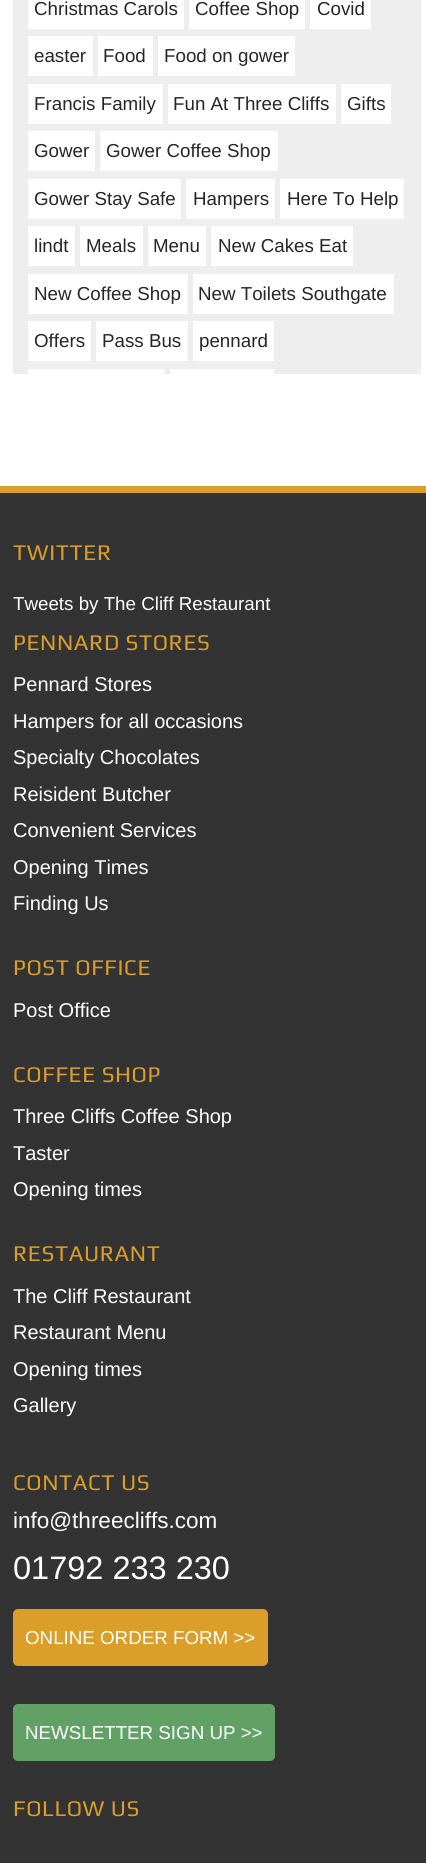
#include <cairo.h>
#include <math.h>
#include <stddef.h>

static cairo_t *c;
static void C(unsigned color){cairo_set_source_rgb(c, (color >> 16) / 255.0, (color >> 8 & 255) / 255.0, (color & 255) / 255.0);}
static void F(const char *family, double size, int italic, int bold){cairo_select_font_face(c, family, italic ? CAIRO_FONT_SLANT_ITALIC : CAIRO_FONT_SLANT_NORMAL,bold ? CAIRO_FONT_WEIGHT_BOLD : CAIRO_FONT_WEIGHT_NORMAL);cairo_set_font_size(c, size);}
static void T(double x, double y, const char *s){cairo_move_to(c, x, y);cairo_show_text(c, s);}
static void L(double x, double y, const char *s, double letter, double word){cairo_move_to(c, x, y);while (*s) {char ch[5] = {0};int n = 0;do ch[n++] = *s++; while ((*s & 0xC0) == 0x80);cairo_show_text(c, ch);cairo_rel_move_to(c, letter + word * (*ch == ' '), 0);}}
static void R(double x, double y, double w, double h){cairo_rectangle(c, x, y, w, h);cairo_fill(c);}
static void Q(double x, double y, double w, double h, double r){cairo_new_sub_path(c);cairo_arc(c, x + w - r, y + h - r, r, 0, M_PI / 2);cairo_arc(c, x + r, y + h - r, r, M_PI / 2, M_PI);cairo_arc(c, x + r, y + r, r, M_PI, 1.5 * M_PI);cairo_arc(c, x + w - r, y + r, r, 1.5 * M_PI, 2 * M_PI);cairo_close_path(c);}
int main(void) {
cairo_surface_t *surface = cairo_image_surface_create(CAIRO_FORMAT_RGB24, 426, 1863);
c = cairo_create(surface);
cairo_font_options_t *options = cairo_font_options_create();
cairo_font_options_set_hint_metrics(options, CAIRO_HINT_METRICS_OFF);
cairo_font_options_set_hint_style(options, CAIRO_HINT_STYLE_NONE);
cairo_set_font_options(c, options);
cairo_set_miter_limit(c, 4);
C(0xffffff);
cairo_paint(c);
C(0xeeeeef);
R(13,0,408,374);
C(0xffffff);
R(28,0,156,29);
F("Liberation Sans",18.75,0,0);
C(0x272627);
T(34,15,"Christmas Carols");
C(0xffffff);
R(189,0,116,29);
C(0x272627);
T(195,15,"Coffee Shop");
C(0xffffff);
R(310,0,61,29);
C(0x272627);
T(317,15,"Covid");
C(0xffffff);
R(28,36,65,40);
C(0x272627);
T(34,62,"easter");
C(0xffffff);
R(98,36,55,40);
C(0x272627);
T(103,62,"Food");
C(0xffffff);
R(158,36,137,40);
C(0x272627);
T(164,62,"Food on gower");
C(0xffffff);
R(28,84,135,40);
C(0x272627);
T(34,110,"Francis Family");
C(0xffffff);
R(168,84,168,40);
C(0x272627);
T(173,110,"Fun At Three Cliffs");
C(0xffffff);
R(341,84,50,40);
C(0x272627);
T(347,110,"Gifts");
C(0xffffff);
R(28,131,67,40);
C(0x272627);
T(34,157,"Gower");
C(0xffffff);
R(100,131,178,40);
C(0x272627);
T(106,157,"Gower Coffee Shop");
C(0xffffff);
R(28,179,153,40);
C(0x272627);
T(34,205,"Gower Stay Safe");
C(0xffffff);
R(186,179,89,40);
C(0x272627);
T(193,205,"Hampers");
C(0xffffff);
R(280,179,124,40);
C(0x272627);
T(287,205,"Here To Help");
C(0xffffff);
R(28,226,47,40);
C(0x272627);
T(34,252,"lindt");
C(0xffffff);
R(80,226,63,40);
C(0x272627);
T(86,252,"Meals");
C(0xffffff);
R(148,226,58,40);
C(0x272627);
T(153,252,"Menu");
C(0xffffff);
R(211,226,142,40);
C(0x272627);
T(218,252,"New Cakes Eat");
C(0xffffff);
R(28,274,160,40);
C(0x272627);
T(34,300,"New Coffee Shop");
C(0xffffff);
R(193,274,201,40);
C(0x272627);
T(198,300,"New Toilets Southgate");
C(0xffffff);
R(28,321,63,40);
C(0x272627);
T(34,347,"Offers");
C(0xffffff);
R(96,321,92,40);
C(0x272627);
T(102,347,"Pass Bus");
C(0xffffff);
R(193,321,81,40);
C(0x272627);
T(199,347,"pennard");
C(0xffffff);
R(28,369,137,5);
R(170,369,104,5);
C(0x333333);
R(0,493,426,1370);
C(0xdb9e29);
R(0,486,426,7);
F("Play",22.5,0,0);
L(13,560,"TWITTER",.6,0);
F("Liberation Sans",18.75,0,0);
C(0xffffff);
T(13,610,"Tweets by The Cliff Restaurant");
F("Play",22.5,0,0);
C(0xdb9e29);
L(13,650,"PENNARD STORES",.6,0);
F("Liberation Sans",20,0,0);
C(0xffffff);
T(13,691,"Pennard Stores");
T(13,728,"Hampers for all occasions");
T(13,764,"Specialty Chocolates");
T(13,801,"Reisident Butcher");
T(13,837,"Convenient Services");
T(13,874,"Opening Times");
T(13,910,"Finding Us");
F("Play",22.5,0,0);
C(0xdb9e29);
L(13,975,"POST OFFICE",.6,0);
F("Liberation Sans",20,0,0);
C(0xffffff);
T(13,1017,"Post Office");
F("Play",22.5,0,0);
C(0xdb9e29);
L(13,1082,"COFFEE SHOP",.6,0);
F("Liberation Sans",20,0,0);
C(0xffffff);
T(13,1123,"Three Cliffs Coffee Shop");
T(13,1160,"Taster");
T(13,1196,"Opening times");
F("Play",22.5,0,0);
C(0xdb9e29);
L(13,1261,"RESTAURANT",.6,0);
F("Liberation Sans",20,0,0);
C(0xffffff);
T(13,1303,"The Cliff Restaurant");
T(13,1339,"Restaurant Menu");
T(13,1376,"Opening times");
T(13,1412,"Gallery");
F("Play",22.5,0,0);
C(0xdb9e29);
L(13,1490,"CONTACT US",.6,0);
F("Liberation Sans",22.5,0,0);
C(0xffffff);
T(13,1528,"info@threecliffs.com");
F("Liberation Sans",32.5,0,0);
T(13,1579,"01792 233 230");
C(0xdb9e29);
Q(13,1609,255,57,5);
cairo_fill(c);
F("Liberation Sans",18.75,0,0);
C(0xffffff);
T(25,1644,"ONLINE ORDER FORM >>");
C(0x62a166);
Q(13,1704,262,57,5);
cairo_fill(c);
C(0xffffff);
T(25,1739,"NEWSLETTER SIGN UP >>");
F("Play",22.5,0,0);
C(0xdb9e29);
L(13,1816,"FOLLOW US",.6,0);
cairo_surface_write_to_png(surface, "o.png");
cairo_font_options_destroy(options);
cairo_destroy(c);
cairo_surface_destroy(surface);
return 0;
}
